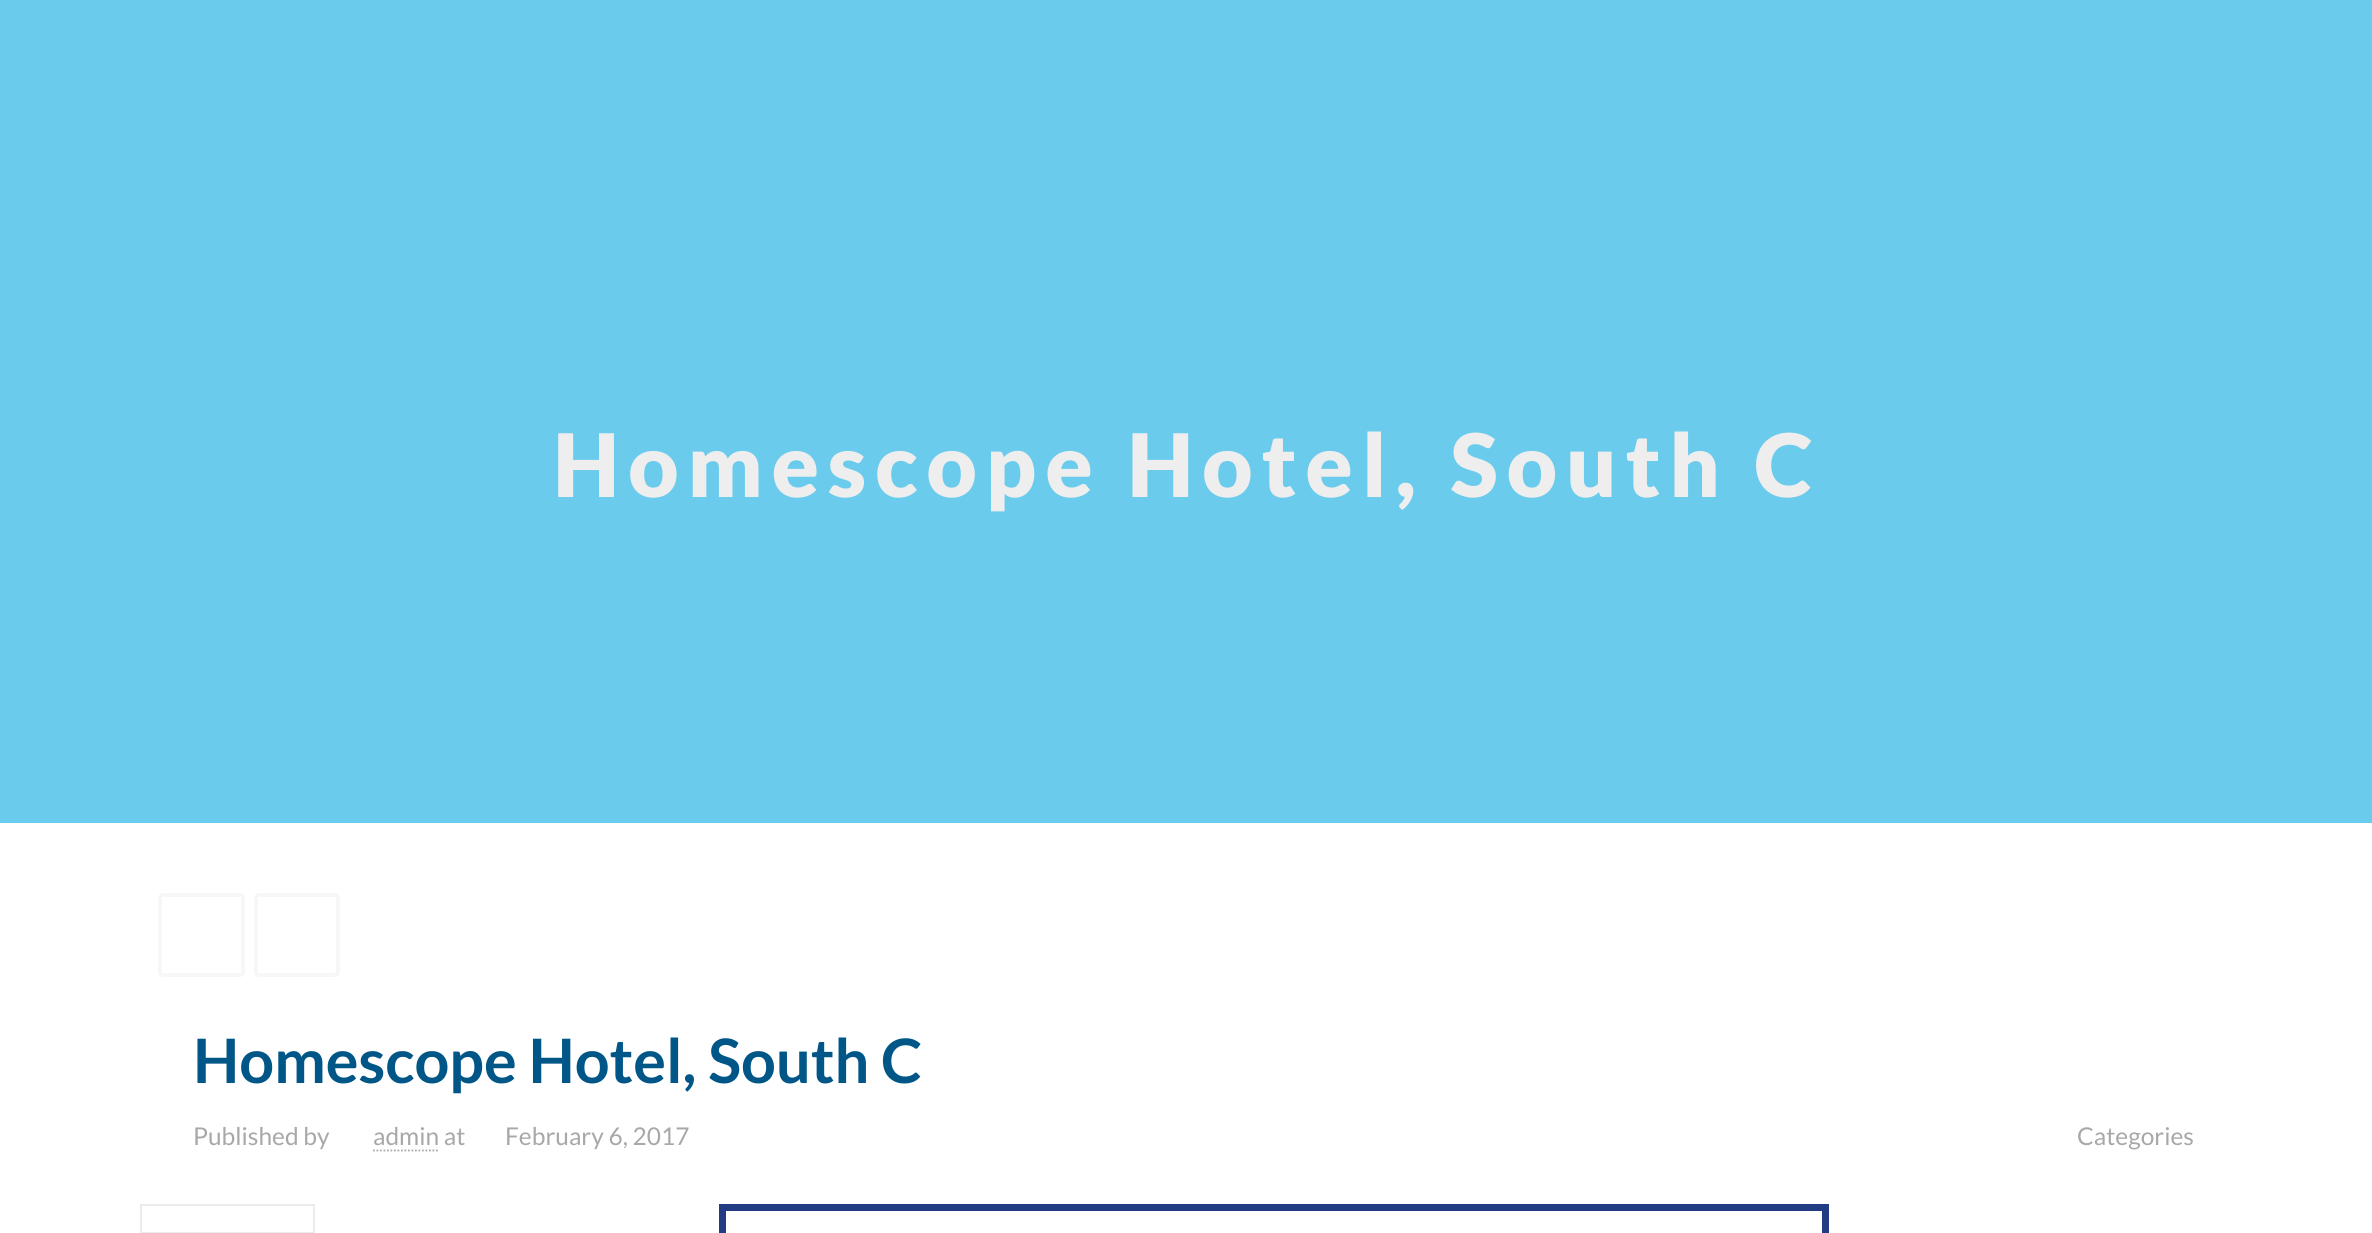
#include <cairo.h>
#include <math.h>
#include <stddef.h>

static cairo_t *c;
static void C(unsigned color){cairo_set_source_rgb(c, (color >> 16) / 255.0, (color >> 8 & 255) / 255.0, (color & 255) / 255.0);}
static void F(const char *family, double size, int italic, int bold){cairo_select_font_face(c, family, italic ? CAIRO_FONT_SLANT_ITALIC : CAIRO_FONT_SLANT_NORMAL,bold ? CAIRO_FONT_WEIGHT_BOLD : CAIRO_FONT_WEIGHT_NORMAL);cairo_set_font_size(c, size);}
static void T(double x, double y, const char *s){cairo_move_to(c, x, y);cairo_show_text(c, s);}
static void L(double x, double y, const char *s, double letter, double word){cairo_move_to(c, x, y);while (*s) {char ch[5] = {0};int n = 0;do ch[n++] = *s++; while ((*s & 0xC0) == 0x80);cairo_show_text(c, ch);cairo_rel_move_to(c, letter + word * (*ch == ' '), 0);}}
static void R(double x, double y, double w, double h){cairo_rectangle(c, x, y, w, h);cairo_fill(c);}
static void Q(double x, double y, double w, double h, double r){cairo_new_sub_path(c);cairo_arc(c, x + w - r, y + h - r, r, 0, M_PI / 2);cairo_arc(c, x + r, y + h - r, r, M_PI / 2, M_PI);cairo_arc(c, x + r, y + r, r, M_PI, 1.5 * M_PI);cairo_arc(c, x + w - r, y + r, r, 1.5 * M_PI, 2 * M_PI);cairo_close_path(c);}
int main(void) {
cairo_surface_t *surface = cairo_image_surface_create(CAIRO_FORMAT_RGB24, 2372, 1233);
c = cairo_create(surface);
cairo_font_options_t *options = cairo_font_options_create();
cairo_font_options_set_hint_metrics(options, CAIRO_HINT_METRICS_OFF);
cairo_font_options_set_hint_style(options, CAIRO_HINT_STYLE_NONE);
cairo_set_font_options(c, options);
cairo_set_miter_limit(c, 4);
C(0xffffff);
cairo_paint(c);
C(0x6acbec);
R(0,0,2372,823);
F("Lato Black",87.5,0,0);
C(0xeeeeee);
L(553,497,"Homescope Hotel, South C",8.75,0);
Q(160,895,83,80,3);
C(0xf7f7f7);
cairo_set_line_width(c,4);
cairo_stroke(c);
Q(256,895,82,80,3);
cairo_stroke(c);
F("Lato",61.25,0,1);
C(0x005687);
T(193,1083,"Homescope Hotel, South C");
F("Lato",24.5,0,0);
C(0xa8a8a8);
T(193,1145,"Published by");
T(373,1145,"admin at");
cairo_new_path(c);
cairo_move_to(c,373,1150.5);
cairo_line_to(c,439,1150.5);
cairo_set_line_width(c,1.8);
cairo_set_dash(c,(double[]){1.75,1.75},2,0);
cairo_stroke(c);
T(505,1145,"February 6, 2017");
T(2077,1145,"Categories");
cairo_rectangle(c,141,1205,173,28);
C(0xebebeb);
cairo_set_line_width(c,2);
cairo_set_dash(c,NULL,0,0);
cairo_stroke(c);
cairo_rectangle(c,722.5,1207.5,1103,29);
C(0x213c82);
cairo_set_line_width(c,7);
cairo_stroke(c);
cairo_surface_write_to_png(surface, "o.png");
cairo_font_options_destroy(options);
cairo_destroy(c);
cairo_surface_destroy(surface);
return 0;
}
